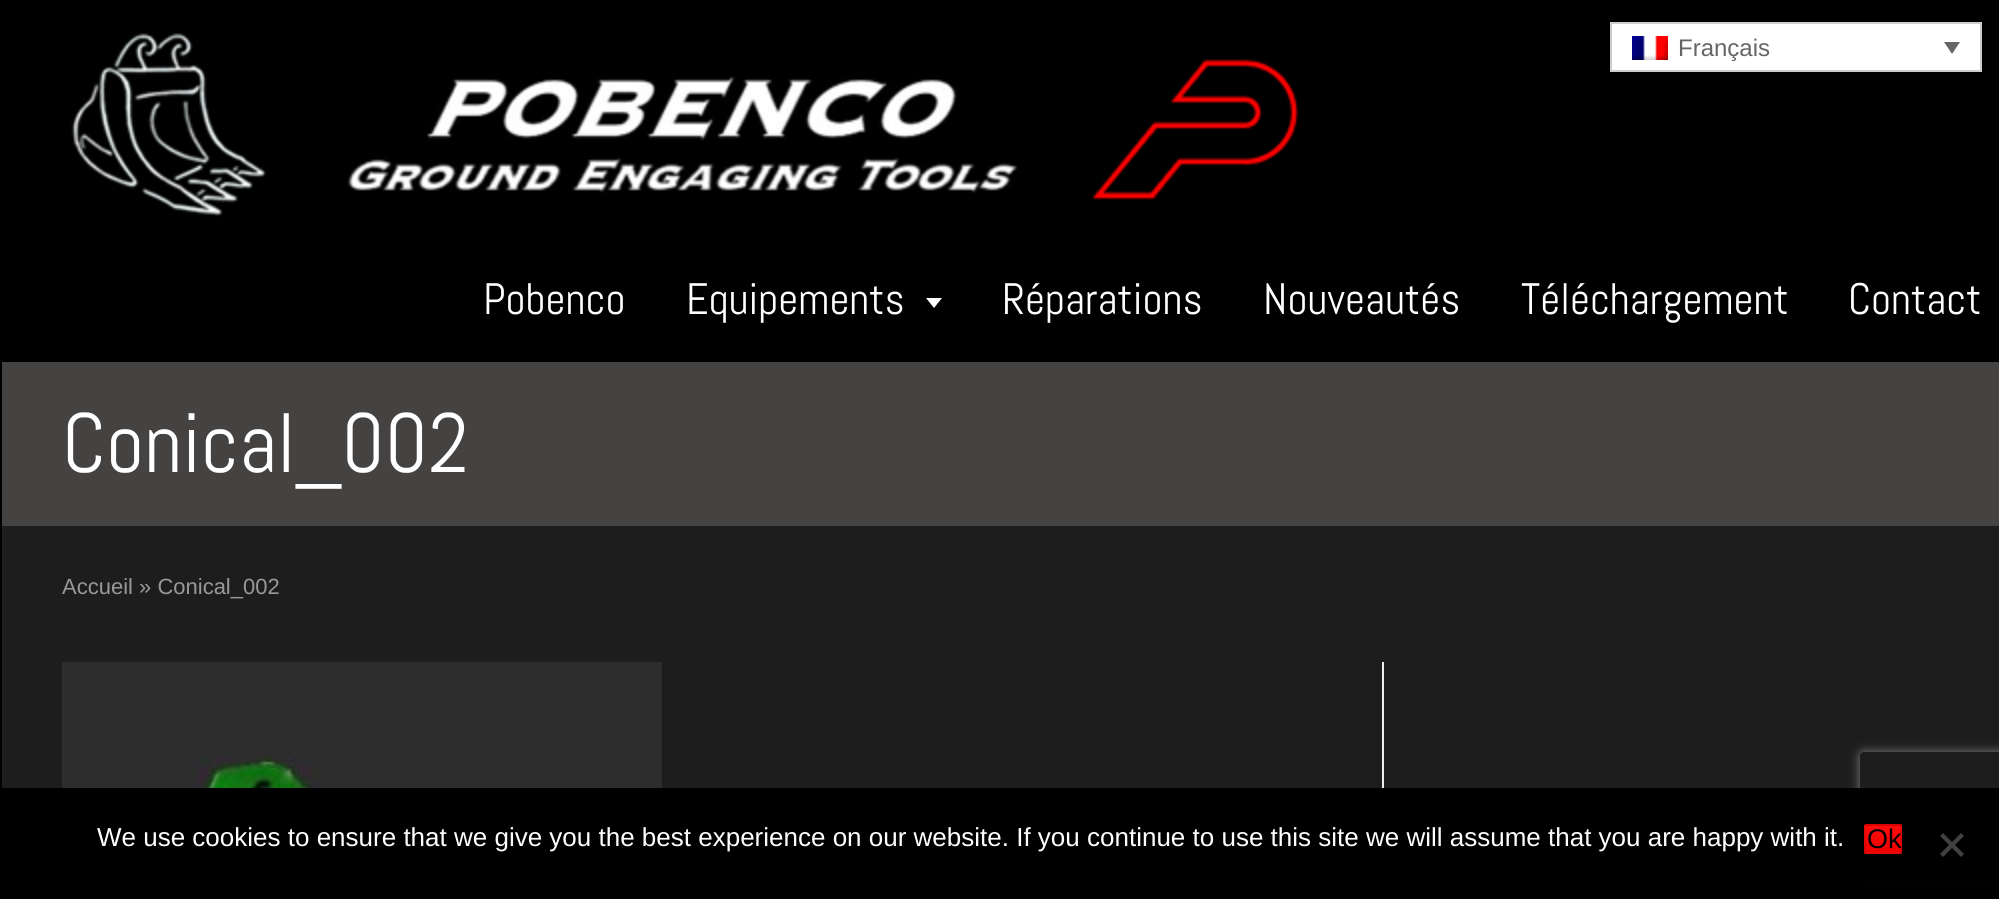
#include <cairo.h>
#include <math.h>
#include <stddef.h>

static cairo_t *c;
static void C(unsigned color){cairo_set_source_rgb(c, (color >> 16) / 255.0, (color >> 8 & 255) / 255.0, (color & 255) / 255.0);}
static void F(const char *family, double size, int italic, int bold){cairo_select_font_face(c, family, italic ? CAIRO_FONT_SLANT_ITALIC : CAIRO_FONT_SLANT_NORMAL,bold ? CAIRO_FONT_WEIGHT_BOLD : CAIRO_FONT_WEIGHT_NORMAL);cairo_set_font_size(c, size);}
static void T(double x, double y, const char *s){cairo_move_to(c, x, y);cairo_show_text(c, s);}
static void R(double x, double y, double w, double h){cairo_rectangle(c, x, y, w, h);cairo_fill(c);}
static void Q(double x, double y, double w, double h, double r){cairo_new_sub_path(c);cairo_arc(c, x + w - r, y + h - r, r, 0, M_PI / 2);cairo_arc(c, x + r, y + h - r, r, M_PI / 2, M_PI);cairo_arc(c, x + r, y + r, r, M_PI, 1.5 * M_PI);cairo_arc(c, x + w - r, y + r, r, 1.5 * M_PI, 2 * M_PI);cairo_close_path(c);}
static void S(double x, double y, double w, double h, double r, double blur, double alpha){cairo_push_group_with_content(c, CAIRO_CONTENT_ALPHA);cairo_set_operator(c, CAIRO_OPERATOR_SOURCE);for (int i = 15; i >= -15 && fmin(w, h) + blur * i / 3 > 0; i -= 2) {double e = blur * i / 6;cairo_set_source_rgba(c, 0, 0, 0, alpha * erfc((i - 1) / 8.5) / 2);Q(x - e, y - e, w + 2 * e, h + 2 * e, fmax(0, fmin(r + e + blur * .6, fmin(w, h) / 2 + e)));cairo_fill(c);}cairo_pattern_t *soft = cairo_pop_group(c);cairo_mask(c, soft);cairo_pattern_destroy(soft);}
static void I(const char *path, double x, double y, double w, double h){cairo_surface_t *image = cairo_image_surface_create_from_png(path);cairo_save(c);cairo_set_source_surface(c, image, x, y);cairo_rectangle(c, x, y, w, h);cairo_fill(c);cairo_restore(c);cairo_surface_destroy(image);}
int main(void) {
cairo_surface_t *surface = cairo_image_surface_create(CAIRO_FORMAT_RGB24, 1999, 899);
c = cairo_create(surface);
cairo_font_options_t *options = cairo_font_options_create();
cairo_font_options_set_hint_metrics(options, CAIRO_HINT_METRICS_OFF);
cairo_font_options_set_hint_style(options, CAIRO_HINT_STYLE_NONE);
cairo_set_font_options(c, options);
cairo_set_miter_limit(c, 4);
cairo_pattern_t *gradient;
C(0x000000);
cairo_paint(c);
I("1.png",71,33,1228,184);
C(0xffffff);
cairo_rectangle(c,1611,23,370,48);
cairo_fill_preserve(c);
C(0xcdcdcd);
cairo_stroke(c);
I("2.png",1632,36,36,24);
F("Liberation Sans",24,0,0);
C(0x666666);
T(1678,56,"Français");
cairo_new_path(c);
cairo_move_to(c,1944,42);
cairo_line_to(c,1960,42);
cairo_line_to(c,1952,54);
cairo_close_path(c);
cairo_fill(c);
F("Abel",44,0,0);
C(0xffffff);
T(483,314,"Pobenco");
T(686,314,"Equipements");
cairo_new_path(c);
cairo_move_to(c,926,298);
cairo_line_to(c,942,298);
cairo_line_to(c,934,308);
cairo_close_path(c);
cairo_fill(c);
T(1002,314,"Réparations");
T(1263,314,"Nouveautés");
T(1521,314,"Téléchargement");
T(1848,314,"Contact");
C(0x454242);
R(2,362,1997,164);
F("Abel",84,0,0);
C(0xffffff);
T(62,472,"Conical_002");
C(0x1e1d1d);
R(2,526,1997,262);
F("Liberation Sans",22,0,0);
C(0x999999);
T(62,594,"Accueil » Conical_002");
I("3.png",62,662,600,126);
C(0xeeeeee);
R(1382,662,2,126);
cairo_save(c);
cairo_set_fill_rule(c,CAIRO_FILL_RULE_EVEN_ODD);
cairo_new_path(c);
cairo_move_to(c,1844,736);
cairo_line_to(c,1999,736);
cairo_line_to(c,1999,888);
cairo_line_to(c,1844,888);
cairo_close_path(c);
cairo_move_to(c,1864,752);
cairo_line_to(c,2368,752);
cairo_curve_to(c,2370,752,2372,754,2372,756);
cairo_line_to(c,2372,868);
cairo_curve_to(c,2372,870,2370,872,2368,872);
cairo_line_to(c,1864,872);
cairo_curve_to(c,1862,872,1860,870,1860,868);
cairo_line_to(c,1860,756);
cairo_curve_to(c,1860,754,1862,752,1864,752);
cairo_close_path(c);
cairo_clip(c);
C(0x808080);
S(1860,752,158,120,4,5,1);
cairo_restore(c);
C(0x000000);
R(1850,788,149,94);
F("Liberation Sans",26,0,0);
C(0xffffff);
T(97,846,"We use cookies to ensure that we give you the best experience on our website. If you continue to use this site we will assume that you are happy with it.");
C(0xff0000);
Q(1864,824,38,30,2);
cairo_fill(c);
gradient = cairo_pattern_create_linear(1883,800,1883,826);
cairo_pattern_add_color_stop_rgba(gradient,0,1,1,1,.05);
cairo_pattern_add_color_stop_rgba(gradient,1,0,0,0,.05);
cairo_set_source(c,gradient);
cairo_pattern_destroy(gradient);
R(1864,824,38,2);
gradient = cairo_pattern_create_linear(1883,826,1883,852);
cairo_pattern_add_color_stop_rgba(gradient,0,1,0.051,0.051,1);
cairo_pattern_add_color_stop_rgba(gradient,1,0.949,0,0,1);
cairo_set_source(c,gradient);
cairo_pattern_destroy(gradient);
R(1864,826,38,26);
gradient = cairo_pattern_create_linear(1883,852,1883,878);
cairo_pattern_add_color_stop_rgba(gradient,0,1,1,1,.05);
cairo_pattern_add_color_stop_rgba(gradient,1,0,0,0,.05);
cairo_set_source(c,gradient);
cairo_pattern_destroy(gradient);
R(1864,852,38,2);
Q(1865,825,36,28,1);
cairo_set_source_rgba(c,0,0,0,0.1);
cairo_stroke(c);
F("Liberation Sans",27,0,0);
C(0x000000);
T(1867,848,"Ok");
C(0x404040);
cairo_new_path(c);
cairo_move_to(c,1961,833);
cairo_line_to(c,1964,836);
cairo_line_to(c,1943,857);
cairo_line_to(c,1940,854);
cairo_close_path(c);
cairo_fill(c);
cairo_new_path(c);
cairo_move_to(c,1940,836);
cairo_line_to(c,1943,833);
cairo_line_to(c,1964,854);
cairo_line_to(c,1961,857);
cairo_close_path(c);
cairo_fill(c);
cairo_surface_write_to_png(surface, "o.png");
cairo_font_options_destroy(options);
cairo_destroy(c);
cairo_surface_destroy(surface);
return 0;
}
